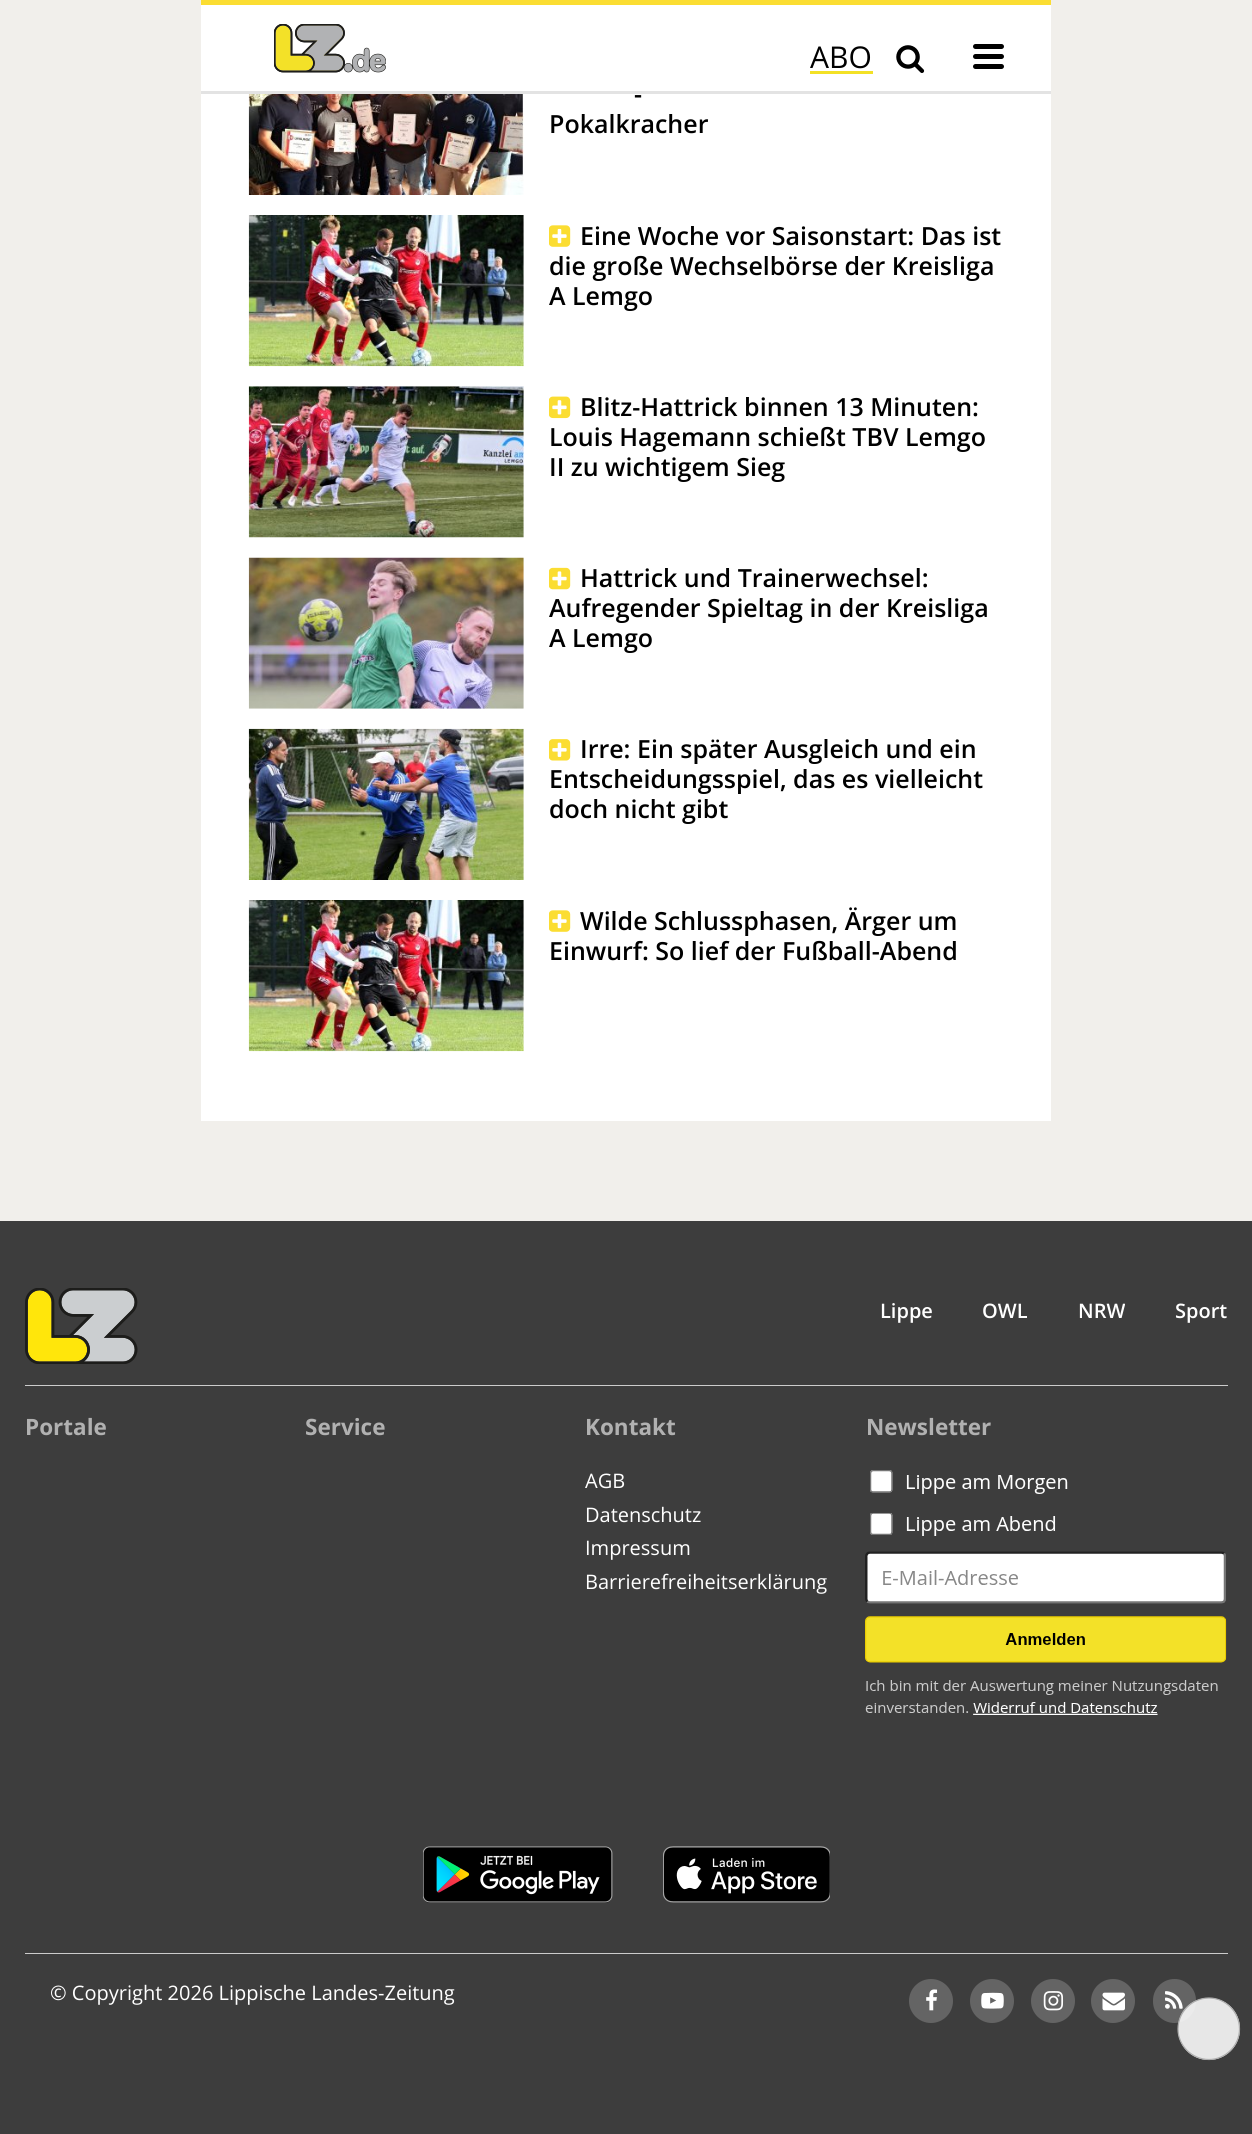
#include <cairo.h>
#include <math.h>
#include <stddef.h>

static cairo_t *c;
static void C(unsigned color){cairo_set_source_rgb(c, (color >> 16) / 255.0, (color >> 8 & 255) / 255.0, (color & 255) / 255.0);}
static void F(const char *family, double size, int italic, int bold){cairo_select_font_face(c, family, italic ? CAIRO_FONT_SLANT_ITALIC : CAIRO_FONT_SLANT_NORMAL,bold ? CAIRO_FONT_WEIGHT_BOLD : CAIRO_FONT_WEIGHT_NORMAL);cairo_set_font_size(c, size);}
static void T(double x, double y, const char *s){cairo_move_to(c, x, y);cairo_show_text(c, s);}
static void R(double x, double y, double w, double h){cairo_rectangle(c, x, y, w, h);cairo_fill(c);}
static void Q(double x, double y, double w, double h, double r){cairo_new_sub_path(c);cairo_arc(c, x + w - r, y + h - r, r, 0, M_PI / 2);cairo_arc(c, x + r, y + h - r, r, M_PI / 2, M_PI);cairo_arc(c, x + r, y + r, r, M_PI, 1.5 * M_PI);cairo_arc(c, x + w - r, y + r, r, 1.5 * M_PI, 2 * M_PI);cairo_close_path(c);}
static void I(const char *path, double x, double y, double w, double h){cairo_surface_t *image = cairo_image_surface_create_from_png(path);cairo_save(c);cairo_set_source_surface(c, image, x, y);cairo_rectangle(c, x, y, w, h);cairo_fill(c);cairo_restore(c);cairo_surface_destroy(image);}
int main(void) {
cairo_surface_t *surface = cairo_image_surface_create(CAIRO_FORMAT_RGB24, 1252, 2134);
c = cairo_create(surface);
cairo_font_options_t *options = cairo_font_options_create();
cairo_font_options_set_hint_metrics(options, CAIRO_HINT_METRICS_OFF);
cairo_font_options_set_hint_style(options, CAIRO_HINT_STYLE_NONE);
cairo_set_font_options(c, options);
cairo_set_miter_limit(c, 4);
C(0xf1efeb);
cairo_paint(c);
C(0xffffff);
R(201,94,850,1027);
R(201,5,850,86);
C(0xfbdd32);
R(201,0,850,5);
C(0xe3e3e3);
R(201,91,850,3);
I("1.png",274,24,112,49);
F("Open Sans",30,0,0);
C(0x000000);
T(810,68,"ABO");
C(0xf3e126);
R(810,71,63,3);
I("2.png",896,45,29,28);
C(0x000000);
Q(973,44,31,5,2.5);
cairo_fill(c);
Q(973,54,31,5,2.5);
cairo_fill(c);
Q(973,64,31,5,2.5);
cairo_fill(c);
I("3.png",248,94,276,101);
F("Open Sans SemiBold",25,0,0);
T(634,103,"-");
T(549,133,"Pokalkracher");
I("4.png",248,215,276,152);
I("5.png",549,225,22,22);
T(580,245,"Eine Woche vor Saisonstart: Das ist");
T(549,275,"die große Wechselbörse der Kreisliga");
T(549,305,"A Lemgo");
I("6.png",248,386,276,152);
I("7.png",549,396,22,23);
T(580,416,"Blitz-Hattrick binnen 13 Minuten:");
T(549,446,"Louis Hagemann schießt TBV Lemgo");
T(549,476,"II zu wichtigem Sieg");
I("8.png",248,557,276,152);
I("9.png",549,567,22,23);
T(580,587,"Hattrick und Trainerwechsel:");
T(549,617,"Aufregender Spieltag in der Kreisliga");
T(549,647,"A Lemgo");
I("10.png",248,728,276,152);
I("11.png",549,739,22,22);
T(580,758,"Irre: Ein später Ausgleich und ein");
T(549,788,"Entscheidungsspiel, das es vielleicht");
T(549,818,"doch nicht gibt");
I("12.png",248,900,276,152);
I("5.png",549,910,22,22);
T(580,930,"Wilde Schlussphasen, Ärger um");
T(549,960,"Einwurf: So lief der Fußball-Abend");
C(0x3d3d3d);
R(0,1221,1252,913);
C(0xcccccc);
R(25,1385,1203,1);
I("13.png",25,1288,113,76);
F("Open Sans SemiBold",20,0,0);
C(0xffffff);
T(880,1318,"Lippe");
T(982,1318,"OWL");
T(1078,1318,"NRW");
T(1175,1318,"Sport");
F("Open Sans",22.5,0,1);
C(0xb1b1b1);
T(25,1435,"Portale");
T(305,1435,"Service");
T(585,1435,"Kontakt");
F("Open Sans",20,0,0);
C(0xffffff);
T(585,1488,"AGB");
T(585,1522,"Datenschutz");
T(585,1555,"Impressum");
T(585,1589,"Barrierefreiheitserklärung");
F("Open Sans",22.5,0,1);
C(0xb1b1b1);
T(866,1435,"Newsletter");
I("14.png",865,1470,362,245);
I("15.png",423,1846,190,57);
I("16.png",663,1846,167,57);
C(0xcccccc);
R(25,1953,1203,1);
F("Open Sans",20,0,0);
C(0xffffff);
T(50,2000,"© Copyright 2026 Lippische Landes-Zeitung");
C(0x646464);
cairo_new_path(c);
cairo_arc(c,931,2001,22,0,2 * M_PI);
cairo_fill(c);
I("17.png",926,1989,12,22);
cairo_arc(c,992,2001,22,0,2 * M_PI);
cairo_fill(c);
I("18.png",981,1992,23,17);
cairo_arc(c,1053,2001,22,0,2 * M_PI);
cairo_fill(c);
I("19.png",1043,1991,21,20);
cairo_arc(c,1113,2001,22,0,2 * M_PI);
cairo_fill(c);
I("20.png",1102,1992,23,19);
Q(1153,1979,43,44,21.5);
cairo_fill(c);
I("21.png",1165,1991,18,18);
cairo_set_source_rgba(c,0.98,0.98,0.98,0.9);
cairo_new_path(c);
cairo_move_to(c,1178,2029);
cairo_curve_to(c,1178,2011,1191,1998,1209,1998);
cairo_curve_to(c,1226,1998,1240,2011,1240,2029);
cairo_curve_to(c,1240,2046,1226,2060,1209,2060);
cairo_curve_to(c,1191,2060,1178,2046,1178,2029);
cairo_close_path(c);
cairo_fill(c);
cairo_new_path(c);
cairo_move_to(c,1178,2029);
cairo_curve_to(c,1178,2012,1192,1998,1209,1998);
cairo_curve_to(c,1225.5,1998,1239.5,2012,1239.5,2029);
cairo_curve_to(c,1239.5,2045.5,1225.5,2059.5,1209,2059.5);
cairo_curve_to(c,1192,2059.5,1178,2045.5,1178,2029);
cairo_close_path(c);
C(0xaeaeae);
cairo_set_line_width(c,1.2);
cairo_stroke(c);
cairo_surface_write_to_png(surface, "o.png");
cairo_font_options_destroy(options);
cairo_destroy(c);
cairo_surface_destroy(surface);
return 0;
}
